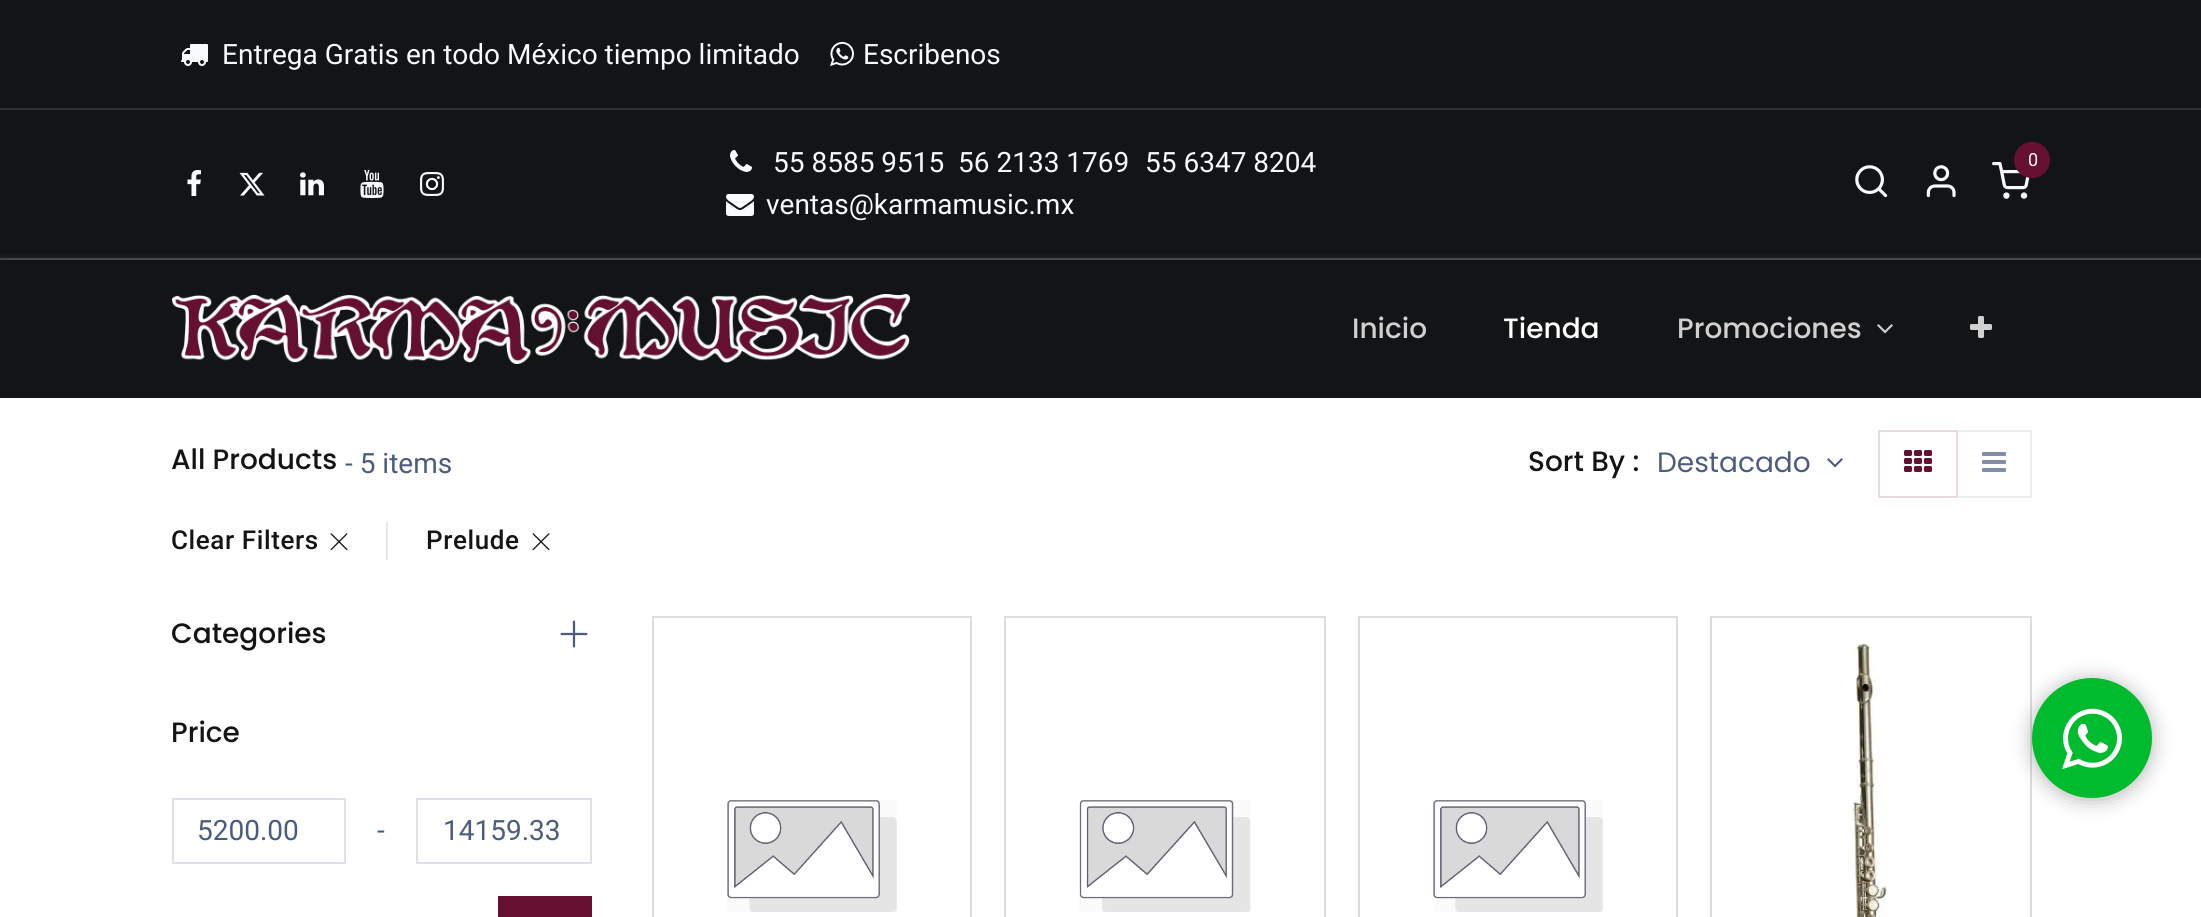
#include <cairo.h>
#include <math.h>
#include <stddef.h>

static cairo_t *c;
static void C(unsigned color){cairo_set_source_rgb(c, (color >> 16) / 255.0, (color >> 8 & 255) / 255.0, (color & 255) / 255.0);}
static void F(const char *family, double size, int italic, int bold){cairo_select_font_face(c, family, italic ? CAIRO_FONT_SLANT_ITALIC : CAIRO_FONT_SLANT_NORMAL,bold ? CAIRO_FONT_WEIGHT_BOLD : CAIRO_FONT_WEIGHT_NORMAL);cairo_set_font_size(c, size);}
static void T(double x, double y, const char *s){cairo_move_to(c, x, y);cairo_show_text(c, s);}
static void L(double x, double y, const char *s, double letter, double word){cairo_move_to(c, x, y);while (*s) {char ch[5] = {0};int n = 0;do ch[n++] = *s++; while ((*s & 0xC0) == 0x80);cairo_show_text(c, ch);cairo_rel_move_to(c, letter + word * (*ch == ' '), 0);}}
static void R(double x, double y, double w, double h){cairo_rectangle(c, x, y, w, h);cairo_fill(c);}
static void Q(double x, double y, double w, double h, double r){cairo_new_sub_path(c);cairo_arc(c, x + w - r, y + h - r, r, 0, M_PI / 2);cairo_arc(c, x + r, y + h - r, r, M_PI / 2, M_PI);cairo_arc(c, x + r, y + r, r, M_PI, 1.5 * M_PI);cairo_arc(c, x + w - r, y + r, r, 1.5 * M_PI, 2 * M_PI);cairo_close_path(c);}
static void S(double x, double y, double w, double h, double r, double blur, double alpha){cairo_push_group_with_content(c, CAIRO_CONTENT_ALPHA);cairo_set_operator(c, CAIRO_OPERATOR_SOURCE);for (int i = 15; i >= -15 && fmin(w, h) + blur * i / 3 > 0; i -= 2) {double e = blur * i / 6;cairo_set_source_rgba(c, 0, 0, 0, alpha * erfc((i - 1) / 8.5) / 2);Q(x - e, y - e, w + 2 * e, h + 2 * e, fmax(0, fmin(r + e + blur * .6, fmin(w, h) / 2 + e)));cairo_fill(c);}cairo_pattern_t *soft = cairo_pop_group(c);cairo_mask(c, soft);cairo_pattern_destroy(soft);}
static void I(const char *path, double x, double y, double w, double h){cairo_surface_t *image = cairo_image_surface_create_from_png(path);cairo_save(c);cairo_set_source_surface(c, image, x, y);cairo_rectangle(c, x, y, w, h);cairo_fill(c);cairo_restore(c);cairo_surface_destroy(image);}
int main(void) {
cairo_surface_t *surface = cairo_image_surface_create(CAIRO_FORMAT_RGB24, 2201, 917);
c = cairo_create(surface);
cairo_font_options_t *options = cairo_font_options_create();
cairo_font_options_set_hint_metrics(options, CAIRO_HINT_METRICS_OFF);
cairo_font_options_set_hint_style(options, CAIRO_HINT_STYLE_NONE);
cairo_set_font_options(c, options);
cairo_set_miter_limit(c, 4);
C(0xffffff);
cairo_paint(c);
C(0x121416);
R(0,0,2201,108);
C(0x2e3032);
R(0,108,2201,2);
I("1.png",181,44,27,22);
F("Roboto",28,0,0);
C(0xf9fafe);
T(222,64,"Entrega Gratis en todo México tiempo limitado");
I("2.png",830,41,24,25);
T(863,64,"Escribenos");
C(0x121416);
R(0,110,2201,148);
C(0x2e3032);
R(0,258,2201,2);
I("3.png",730,150,22,22);
C(0xf9fafe);
T(773,172,"55 8585 9515");
T(958,172,"56 2133 1769");
T(1145,172,"55 6347 8204");
I("4.png",726,194,28,22);
T(766,214,"ventas@karmamusic.mx");
I("5.png",1992,162,38,37);
C(0x661031);
cairo_arc(c,2032,160,18,0,2 * M_PI);
cairo_fill(c);
F("Roboto",18,0,0);
C(0xffffff);
T(2028,166,"0");
I("6.png",1855,165,33,33);
I("7.png",1926,165,30,33);
I("8.png",187,170,14,26);
I("9.png",239,172,26,24);
I("10.png",300,172,24,24);
I("11.png",360,170,24,28);
I("12.png",420,172,24,24);
C(0xffffff);
S(0,264,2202,138,0,4,1);
C(0x121416);
R(0,260,2201,138);
I("13.png",172,294,738,70);
F("Poppins Medium",28,0,0);
C(0xd0d0d0);
T(1352,338,"Inicio");
C(0xffffff);
T(1503,338,"Tienda");
C(0xd0d0d0);
T(1677,338,"Promociones");
I("14.png",1877,324,16,10);
I("15.png",1970,316,22,22);
C(0x121416);
T(171,469,"All Products");
F("Roboto",28,0,0);
C(0x4d5b7c);
T(345,473,"- 5 items");
F("Poppins Medium",28,0,0);
C(0x121416);
T(1528,471,"Sort By :");
F("Poppins",28,0,0);
C(0x4d5b7c);
T(1657,472,"Destacado");
I("16.png",1827,458,16,10);
cairo_rectangle(c,1957,431,74,66);
C(0xeceef1);
cairo_stroke(c);
cairo_rectangle(c,1879,431,78,66);
C(0xe8dbe0);
cairo_stroke(c);
I("17.png",1904,450,28,22);
I("18.png",1982,452,24,20);
C(0xe4e6eb);
R(386,522,2,38);
F("Roboto Medium",26,0,0);
C(0x121416);
L(171,549,"Clear Filters",.6,0);
I("19.png",330,533,18,18);
L(426,549,"Prelude",.6,0);
I("19.png",532,533,18,18);
F("Poppins Medium",28,0,0);
T(171,643,"Categories");
I("20.png",560,620,28,28);
T(171,742,"Price");
cairo_rectangle(c,173,799,172,64);
C(0xdee2e6);
cairo_stroke(c);
F("Roboto",28,0,0);
C(0x4d5b7c);
T(197,840,"5200.00");
T(377,840,"-");
cairo_rectangle(c,417,799,174,64);
C(0xdee2e6);
cairo_stroke(c);
C(0x4d5b7c);
T(443,840,"14159.33");
C(0x661031);
R(498,896,94,21);
cairo_rectangle(c,653,617,318,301);
C(0xdededf);
cairo_stroke(c);
I("21.png",727,800,170,112);
cairo_rectangle(c,1005,617,320,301);
cairo_stroke(c);
I("22.png",1079,800,172,112);
cairo_rectangle(c,1359,617,318,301);
cairo_stroke(c);
I("21.png",1433,800,170,112);
cairo_rectangle(c,1711,617,320,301);
cairo_stroke(c);
I("23.png",1851,644,37,273);
C(0x000000);
S(2032,680,120,120,60,10,.3);
C(0x00bb2d);
cairo_arc(c,2092,738,60,0,2 * M_PI);
cairo_fill(c);
I("24.png",2062,708,60,62);
cairo_surface_write_to_png(surface, "o.png");
cairo_font_options_destroy(options);
cairo_destroy(c);
cairo_surface_destroy(surface);
return 0;
}
